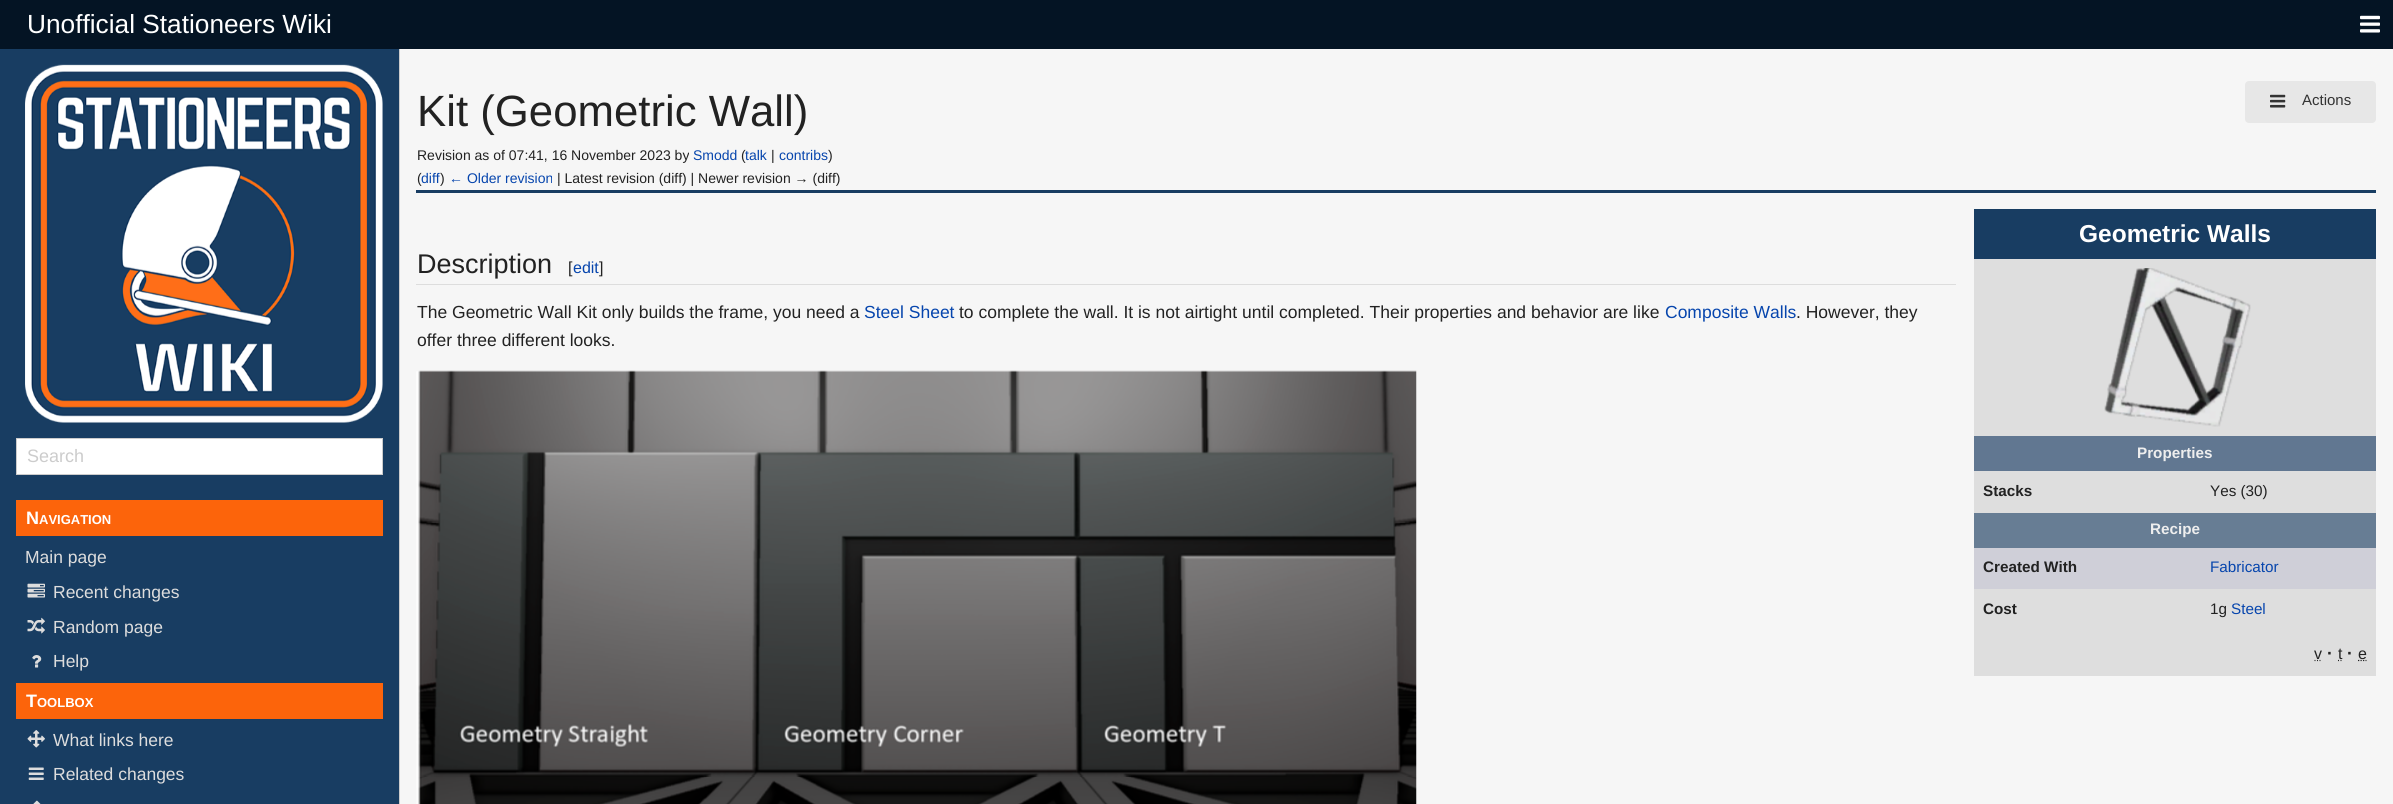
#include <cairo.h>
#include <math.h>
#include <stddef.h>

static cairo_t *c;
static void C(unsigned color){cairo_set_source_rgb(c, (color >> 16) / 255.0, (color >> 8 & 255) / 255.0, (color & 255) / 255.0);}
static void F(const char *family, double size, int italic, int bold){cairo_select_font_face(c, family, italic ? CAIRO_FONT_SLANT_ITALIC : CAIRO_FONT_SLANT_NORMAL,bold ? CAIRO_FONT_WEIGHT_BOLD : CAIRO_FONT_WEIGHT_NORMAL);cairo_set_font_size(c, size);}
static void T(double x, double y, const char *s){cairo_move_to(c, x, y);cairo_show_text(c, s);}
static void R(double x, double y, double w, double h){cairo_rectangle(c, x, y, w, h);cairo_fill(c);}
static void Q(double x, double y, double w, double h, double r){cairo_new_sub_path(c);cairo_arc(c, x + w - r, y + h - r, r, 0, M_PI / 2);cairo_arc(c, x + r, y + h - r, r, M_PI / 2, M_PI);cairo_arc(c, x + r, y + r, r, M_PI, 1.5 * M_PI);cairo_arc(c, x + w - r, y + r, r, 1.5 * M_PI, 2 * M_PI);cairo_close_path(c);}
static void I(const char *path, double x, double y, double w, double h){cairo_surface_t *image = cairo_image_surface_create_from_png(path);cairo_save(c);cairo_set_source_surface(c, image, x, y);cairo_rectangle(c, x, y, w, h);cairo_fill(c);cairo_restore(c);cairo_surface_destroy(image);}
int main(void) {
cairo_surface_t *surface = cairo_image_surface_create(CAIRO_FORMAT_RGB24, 2393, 804);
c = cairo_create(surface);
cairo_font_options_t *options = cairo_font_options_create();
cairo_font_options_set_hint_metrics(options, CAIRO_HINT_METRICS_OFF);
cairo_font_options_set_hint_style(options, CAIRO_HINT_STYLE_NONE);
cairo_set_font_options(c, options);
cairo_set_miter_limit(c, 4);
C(0x183d62);
cairo_paint(c);
C(0x041424);
R(0,0,2393,49);
F("Liberation Sans",26.25,0,0);
C(0xffffff);
T(27,33,"Unofficial Stationeers Wiki");
I("1.png",2360,15,20,18);
I("2.png",25,64,358,359);
cairo_rectangle(c,16.5,438.5,366,36);
cairo_fill_preserve(c);
C(0xcccccc);
cairo_set_line_width(c,1);
cairo_stroke(c);
F("Liberation Sans",18,0,0);
T(27,462,"Search");
C(0xfc640b);
R(16,500,367,36);
F("Liberation Sans",18,0,1);
C(0xffffff);
T(26,524,"N");
F("Liberation Sans",13,0,1);
T(39,524,"AVIGATION");
F("Liberation Sans",17.5,0,0);
C(0xdddddd);
T(25,563,"Main page");
I("3.png",27,583,18,15);
T(53,598,"Recent changes");
I("4.png",27,617,18,17);
T(53,633,"Random page");
I("5.png",32,655,10,13);
T(53,667,"Help");
C(0xfc640b);
R(16,683,367,36);
F("Liberation Sans",18,0,1);
C(0xffffff);
T(26,707,"T");
F("Liberation Sans",13,0,1);
T(37,707,"OOLBOX");
I("6.png",27,730,18,18);
F("Liberation Sans",17.5,0,0);
C(0xdddddd);
T(53,746,"What links here");
I("7.png",28,767,16,13);
T(53,780,"Related changes");
I("8.png",33,800,8,4);
C(0xf6f6f6);
R(400,49,1993,755);
C(0xcccccc);
R(399,49,1,755);
F("Liberation Sans",43.75,0,0);
C(0x222222);
T(417,126,"Kit (Geometric Wall)");
C(0x183d62);
R(416,190,1960,3);
F("Liberation Sans",14,0,0);
C(0x222222);
T(417,160,"Revision as of 07:41, 16 November 2023 by");
C(0x0645ad);
T(693,160,"Smodd");
C(0x222222);
T(741,160,"(");
C(0x0645ad);
T(745,160,"talk");
C(0x222222);
T(771,160,"|");
C(0x0645ad);
T(779,160,"contribs");
C(0x222222);
T(828,160,")");
T(417,183,"(");
C(0x0645ad);
T(421,183,"diff");
C(0x222222);
T(440,183,")");
C(0x0645ad);
T(449,183,"← Older revision");
C(0x222222);
T(557,183,"| Latest revision (diff) | Newer revision → (diff)");
C(0xdddddd);
R(416,284,1540,1);
F("Liberation Sans",27,0,0);
C(0x222222);
T(417,273,"Description");
F("Liberation Sans",16,0,0);
T(568,273,"[");
C(0x0645ad);
T(573,273,"edit");
C(0x222222);
T(599,273,"]");
C(0xdedede);
R(1974,259,402,417);
C(0x183d62);
R(1974,209,402,50);
F("Liberation Sans",24.5,0,1);
C(0xffffff);
T(2079,242,"Geometric Walls");
I("9.png",2104,268,147,159);
C(0x617791);
R(1974,436,402,35);
F("Liberation Sans",15.25,0,1);
C(0xeeeeee);
T(2137,458,"Properties");
C(0x222222);
T(1983,496,"Stacks");
F("Liberation Sans",15.25,0,0);
T(2210,496,"Yes (30)");
C(0x677d94);
R(1974,513,402,35);
F("Liberation Sans",15.25,0,1);
C(0xeeeeee);
T(2150,534,"Recipe");
C(0xcfcfd8);
R(1974,548,402,41);
C(0x222222);
T(1983,572,"Created With");
F("Liberation Sans",15.25,0,0);
C(0x0645ad);
T(2210,572,"Fabricator");
F("Liberation Sans",15.25,0,1);
C(0x222222);
T(1983,614,"Cost");
F("Liberation Sans",15.25,0,0);
T(2210,614,"1g");
C(0x0645ad);
T(2231,614,"Steel");
F("Liberation Sans",16,0,0);
C(0x222222);
T(2314,659,"v");
cairo_new_path(c);
cairo_move_to(c,2314.5,660.5);
cairo_line_to(c,2315.5,660.5);
cairo_move_to(c,2317,660.5);
cairo_line_to(c,2318,660.5);
cairo_move_to(c,2319.5,660.5);
cairo_line_to(c,2320.5,660.5);
cairo_move_to(c,2322,660.5);
cairo_line_to(c,2322,660.5);
cairo_set_line_width(c,1.2);
cairo_stroke(c);
F("Liberation Sans",17.5,0,1);
T(2327,659,"·");
cairo_new_path(c);
cairo_move_to(c,2338,660.5);
cairo_line_to(c,2339,660.5);
cairo_move_to(c,2340.5,660.5);
cairo_line_to(c,2341.5,660.5);
cairo_stroke(c);
F("Liberation Sans",16,0,0);
T(2338,659,"t");
F("Liberation Sans",17.5,0,1);
T(2347,659,"·");
cairo_new_path(c);
cairo_move_to(c,2358,660.5);
cairo_line_to(c,2366.5,660.5);
cairo_set_dash(c,(double[]){1.25,1.25},2,0);
cairo_stroke(c);
F("Liberation Sans",16,0,0);
T(2358,659,"e");
F("Liberation Sans",17.5,0,0);
T(417,318,"The Geometric Wall Kit only builds the frame, you need a");
C(0x0645ad);
T(864,318,"Steel Sheet");
C(0x222222);
T(959,318,"to complete the wall. It is not airtight until completed. Their properties and behavior are like");
C(0x0645ad);
T(1665,318,"Composite Walls");
C(0x222222);
T(1796,318,". However, they");
T(417,346,"offer three different looks.");
I("10.png",416,370,1001,434);
C(0xe7e7e7);
Q(2245,81,131,42,4);
cairo_fill(c);
I("11.png",2270,94,16,14);
F("Liberation Sans",15,0,0);
C(0x333333);
T(2302,105,"Actions");
cairo_surface_write_to_png(surface, "o.png");
cairo_font_options_destroy(options);
cairo_destroy(c);
cairo_surface_destroy(surface);
return 0;
}
